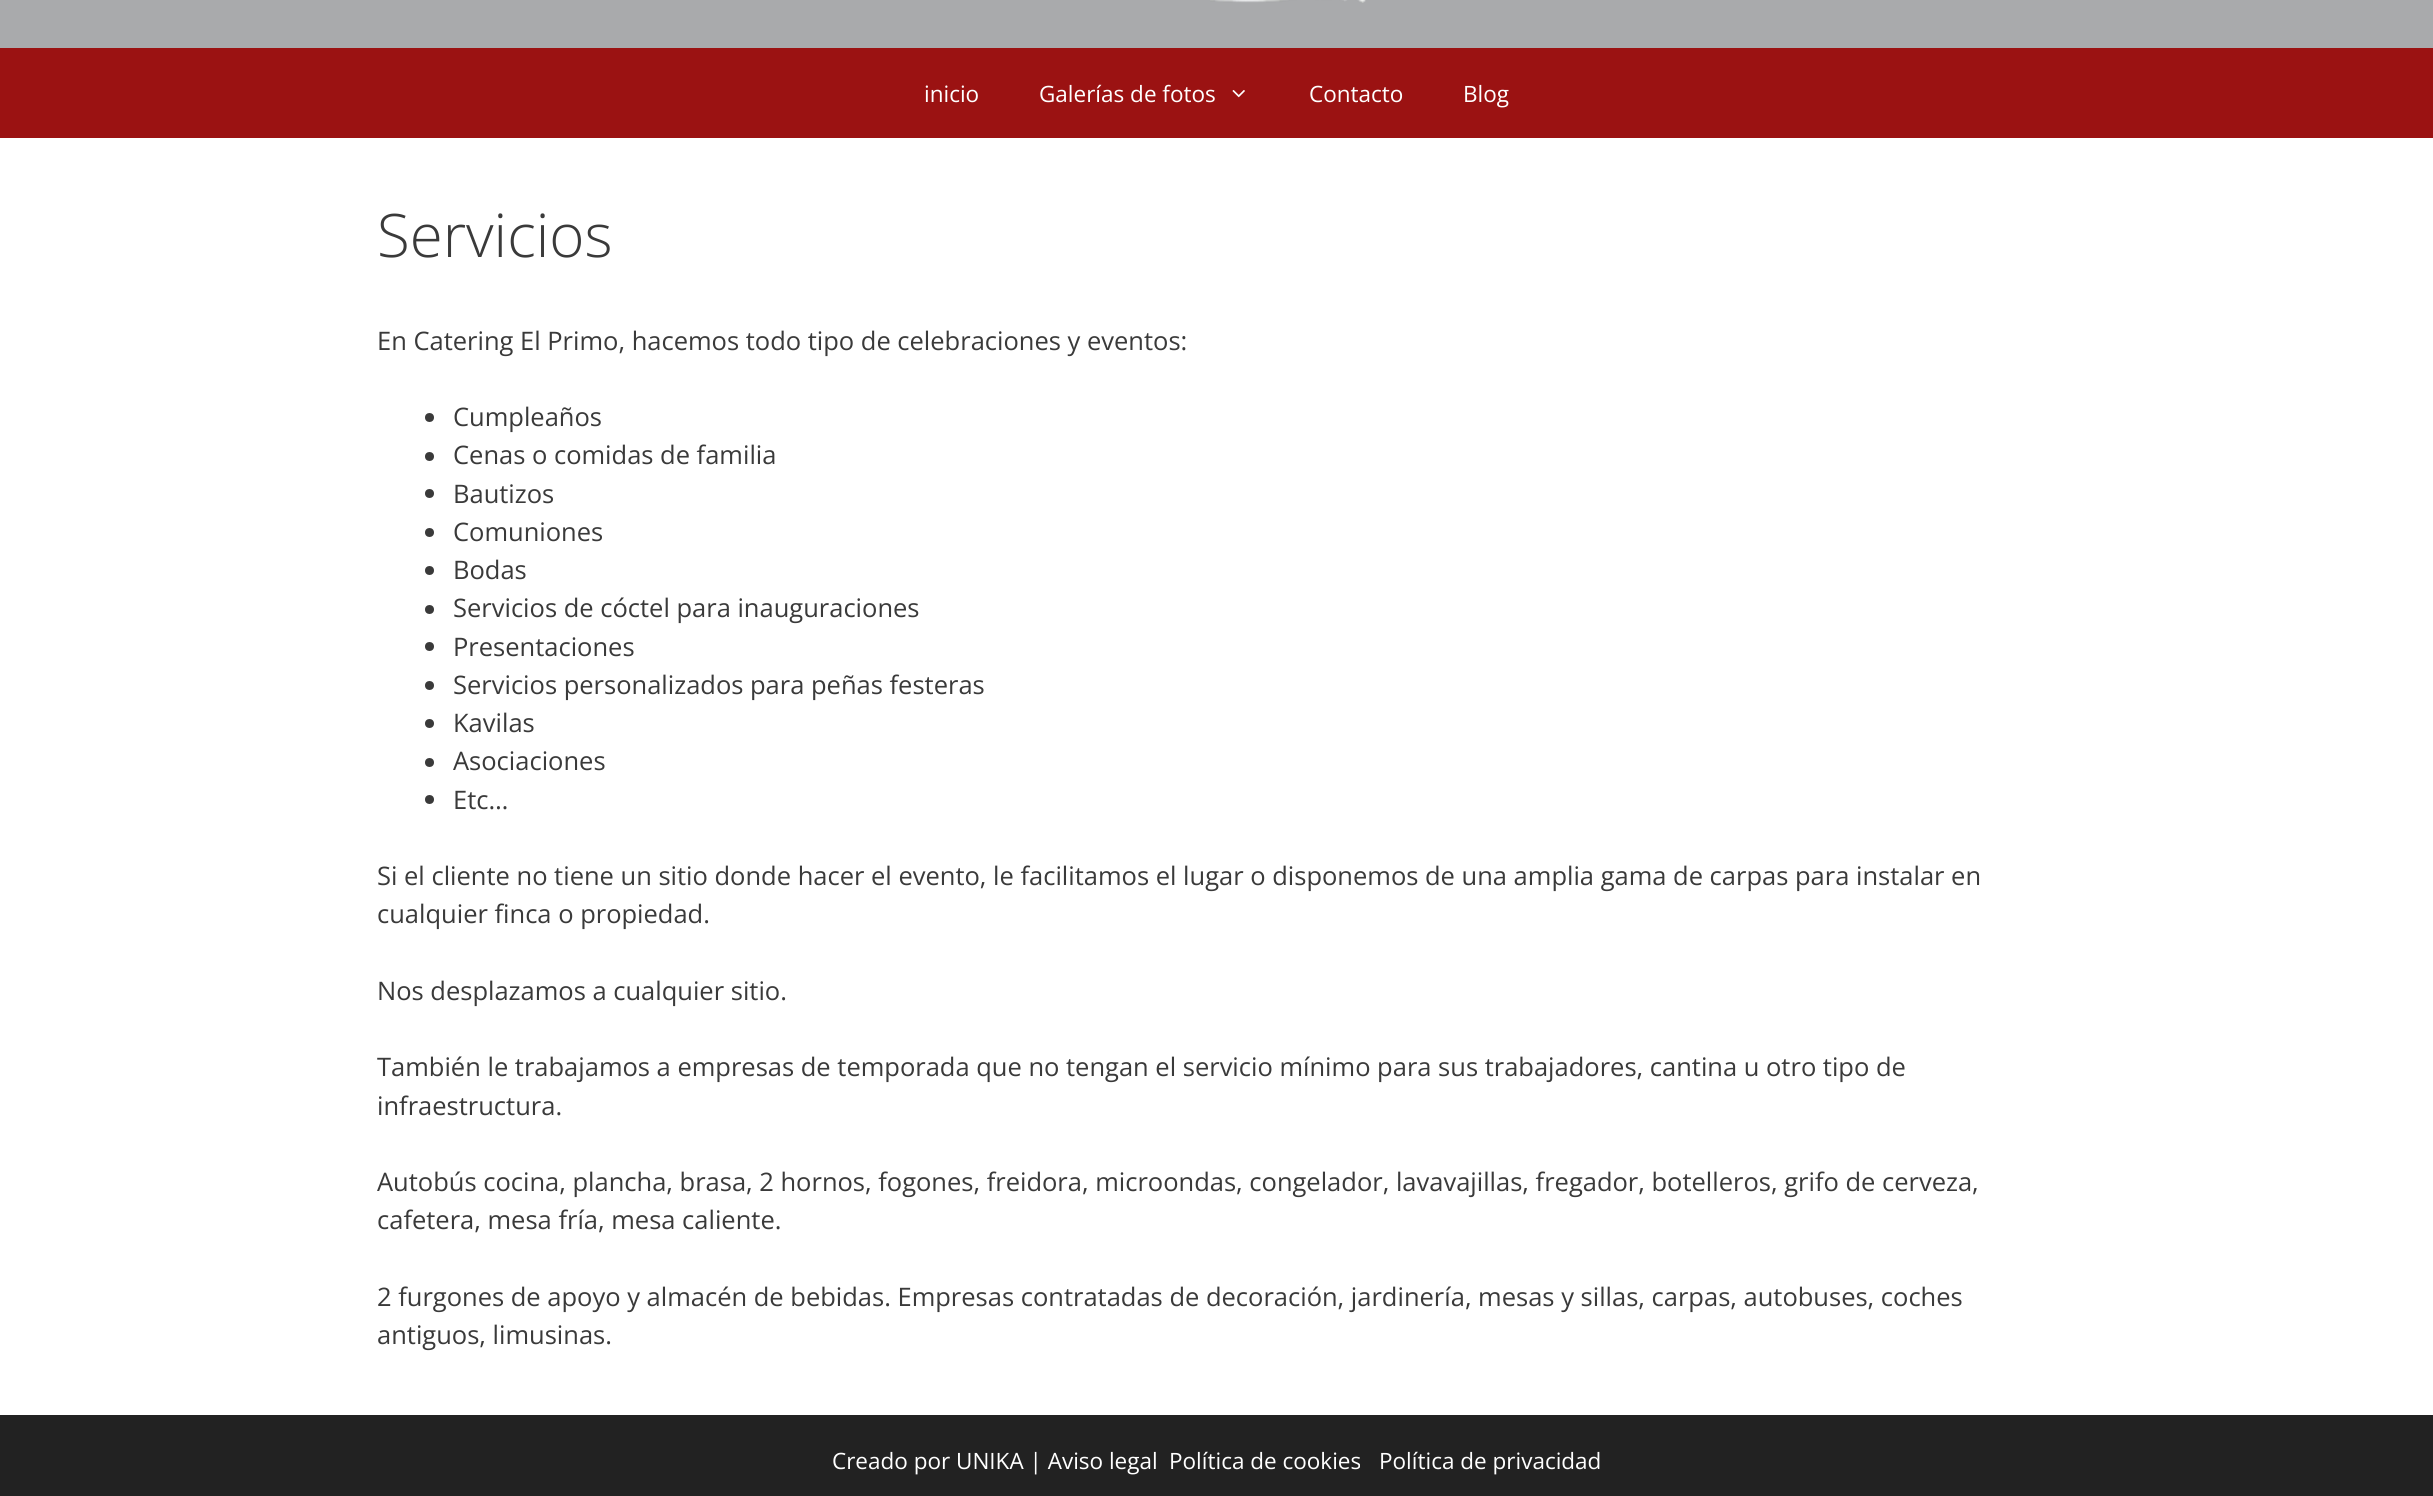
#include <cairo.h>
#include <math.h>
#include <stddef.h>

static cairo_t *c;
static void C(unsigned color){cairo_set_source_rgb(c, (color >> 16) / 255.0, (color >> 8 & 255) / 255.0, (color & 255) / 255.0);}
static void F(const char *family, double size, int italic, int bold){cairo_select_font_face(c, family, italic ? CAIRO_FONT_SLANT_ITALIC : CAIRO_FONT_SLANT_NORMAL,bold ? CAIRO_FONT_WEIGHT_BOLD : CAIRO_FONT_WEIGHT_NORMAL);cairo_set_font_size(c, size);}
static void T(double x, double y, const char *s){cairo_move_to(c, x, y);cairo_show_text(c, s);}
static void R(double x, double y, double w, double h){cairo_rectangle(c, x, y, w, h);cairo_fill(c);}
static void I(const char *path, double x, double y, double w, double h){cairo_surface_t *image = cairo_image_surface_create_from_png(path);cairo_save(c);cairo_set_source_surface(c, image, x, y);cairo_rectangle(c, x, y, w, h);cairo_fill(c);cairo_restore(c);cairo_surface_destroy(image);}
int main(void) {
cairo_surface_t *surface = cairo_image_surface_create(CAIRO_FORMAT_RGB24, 2433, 1496);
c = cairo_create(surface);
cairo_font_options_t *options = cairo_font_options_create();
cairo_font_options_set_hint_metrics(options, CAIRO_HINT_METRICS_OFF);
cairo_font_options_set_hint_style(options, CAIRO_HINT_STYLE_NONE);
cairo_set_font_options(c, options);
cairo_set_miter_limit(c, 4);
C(0xffffff);
cairo_paint(c);
C(0xa9aaac);
R(0,0,2433,48);
I("1.png",1210,0,156,3);
C(0x9b1212);
R(0,48,2433,90);
F("Open Sans",22.5,0,0);
C(0xffffff);
T(924,102,"inicio");
T(1039,102,"Galerías de fotos");
I("2.png",1232,90,13,8);
T(1309,102,"Contacto");
T(1463,102,"Blog");
F("Open Sans Light",60,0,0);
C(0x3a3a3a);
T(377,257,"Servicios");
F("Open Sans",25.5,0,0);
T(377,350,"En Catering El Primo, hacemos todo tipo de celebraciones y eventos:");
cairo_new_path(c);
cairo_arc(c,429.5,417.5,4.5,0,2 * M_PI);
cairo_fill(c);
T(453,426,"Cumpleaños");
cairo_new_path(c);
cairo_arc(c,429.5,456.5,4.5,0,2 * M_PI);
cairo_fill(c);
T(453,464,"Cenas o comidas de familia");
cairo_new_path(c);
cairo_arc(c,429.5,493.5,4.5,0,2 * M_PI);
cairo_fill(c);
T(453,503,"Bautizos");
cairo_new_path(c);
cairo_arc(c,429.5,532.5,4.5,0,2 * M_PI);
cairo_fill(c);
T(453,541,"Comuniones");
cairo_new_path(c);
cairo_arc(c,429.5,570.5,4.5,0,2 * M_PI);
cairo_fill(c);
T(453,579,"Bodas");
cairo_new_path(c);
cairo_arc(c,429.5,609.5,4.5,0,2 * M_PI);
cairo_fill(c);
T(453,617,"Servicios de cóctel para inauguraciones");
cairo_new_path(c);
cairo_arc(c,429.5,646.5,4.5,0,2 * M_PI);
cairo_fill(c);
T(453,656,"Presentaciones");
cairo_new_path(c);
cairo_arc(c,429.5,685.5,4.5,0,2 * M_PI);
cairo_fill(c);
T(453,694,"Servicios personalizados para peñas festeras");
cairo_new_path(c);
cairo_arc(c,429.5,723.5,4.5,0,2 * M_PI);
cairo_fill(c);
T(453,732,"Kavilas");
cairo_new_path(c);
cairo_arc(c,429.5,762.5,4.5,0,2 * M_PI);
cairo_fill(c);
T(453,770,"Asociaciones");
cairo_new_path(c);
cairo_arc(c,429.5,799.5,4.5,0,2 * M_PI);
cairo_fill(c);
T(453,809,"Etc…");
T(377,885,"Si el cliente no tiene un sitio donde hacer el evento, le facilitamos el lugar o disponemos de una amplia gama de carpas para instalar en");
T(377,923,"cualquier finca o propiedad.");
T(377,1000,"Nos desplazamos a cualquier sitio.");
T(377,1076,"También le trabajamos a empresas de temporada que no tengan el servicio mínimo para sus trabajadores, cantina u otro tipo de");
T(377,1115,"infraestructura.");
T(377,1191,"Autobús cocina, plancha, brasa, 2 hornos, fogones, freidora, microondas, congelador, lavavajillas, fregador, botelleros, grifo de cerveza,");
T(377,1229,"cafetera, mesa fría, mesa caliente.");
T(377,1306,"2 furgones de apoyo y almacén de bebidas. Empresas contratadas de decoración, jardinería, mesas y sillas, carpas, autobuses, coches");
T(377,1344,"antiguos, limusinas.");
C(0x222222);
R(0,1415,2433,81);
F("Open Sans",22.5,0,0);
C(0xffffff);
T(832,1469,"Creado por UNIKA | Aviso legal");
T(1169,1469,"Política de cookies");
T(1379,1469,"Política de privacidad");
cairo_surface_write_to_png(surface, "o.png");
cairo_font_options_destroy(options);
cairo_destroy(c);
cairo_surface_destroy(surface);
return 0;
}
